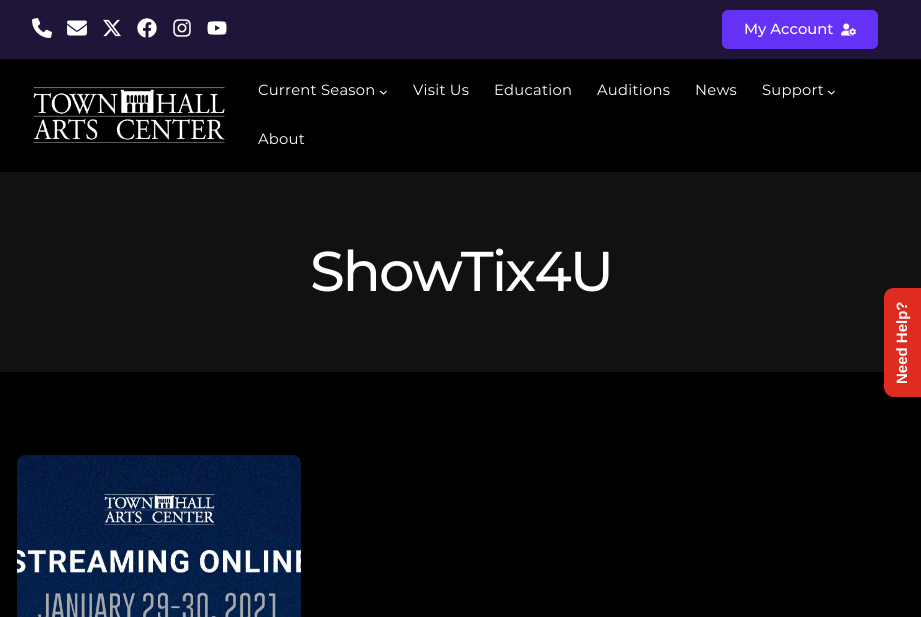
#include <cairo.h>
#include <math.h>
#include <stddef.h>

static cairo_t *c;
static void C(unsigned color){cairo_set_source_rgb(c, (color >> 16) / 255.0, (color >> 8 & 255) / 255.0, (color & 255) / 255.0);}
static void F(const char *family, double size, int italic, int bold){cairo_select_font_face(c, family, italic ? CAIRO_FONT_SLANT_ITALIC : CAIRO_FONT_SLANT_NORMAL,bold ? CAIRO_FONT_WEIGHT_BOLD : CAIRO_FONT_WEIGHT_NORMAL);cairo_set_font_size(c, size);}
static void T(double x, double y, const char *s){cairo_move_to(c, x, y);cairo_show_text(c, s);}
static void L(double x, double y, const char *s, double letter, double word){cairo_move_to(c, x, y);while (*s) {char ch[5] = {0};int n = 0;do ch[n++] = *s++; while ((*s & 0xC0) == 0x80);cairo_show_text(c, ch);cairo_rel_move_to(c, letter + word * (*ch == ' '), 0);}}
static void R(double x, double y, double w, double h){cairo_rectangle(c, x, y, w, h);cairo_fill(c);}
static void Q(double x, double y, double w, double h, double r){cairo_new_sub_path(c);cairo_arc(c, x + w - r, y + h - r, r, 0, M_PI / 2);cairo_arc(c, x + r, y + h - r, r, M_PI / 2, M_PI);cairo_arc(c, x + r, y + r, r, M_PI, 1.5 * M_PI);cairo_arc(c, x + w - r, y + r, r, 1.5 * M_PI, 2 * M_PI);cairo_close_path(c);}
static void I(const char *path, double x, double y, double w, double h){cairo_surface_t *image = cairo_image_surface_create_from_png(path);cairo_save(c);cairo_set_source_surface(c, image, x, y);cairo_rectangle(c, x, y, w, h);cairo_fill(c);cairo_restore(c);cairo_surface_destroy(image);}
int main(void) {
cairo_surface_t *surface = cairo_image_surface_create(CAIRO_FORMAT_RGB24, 921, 617);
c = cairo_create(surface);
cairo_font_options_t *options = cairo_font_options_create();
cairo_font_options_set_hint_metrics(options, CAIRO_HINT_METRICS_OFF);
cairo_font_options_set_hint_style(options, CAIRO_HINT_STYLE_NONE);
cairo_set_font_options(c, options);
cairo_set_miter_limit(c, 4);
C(0x000000);
cairo_paint(c);
C(0x1e1539);
R(0,0,921,59);
I("1.png",32,18,20,20);
I("2.png",67,20,20,16);
I("3.png",103,19,18,18);
I("4.png",137,18,20,20);
I("5.png",173,19,18,18);
I("6.png",207,21,20,14);
C(0x6431f6);
Q(722,10,156,39,6);
cairo_fill(c);
F("Montserrat Medium",14.75,0,0);
C(0xffffff);
T(744,34,"My Account");
I("7.png",841,23,15,13);
I("8.png",33,87,192,56);
F("Montserrat",14.75,0,0);
L(258,95,"Current Season",.25,0);
cairo_new_path(c);
cairo_move_to(c,380,91);
cairo_line_to(c,383.5,94);
cairo_line_to(c,386.5,91);
cairo_set_line_width(c,1.1);
cairo_stroke(c);
L(413,95,"Visit Us",.25,0);
L(494,95,"Education",.25,0);
L(597,95,"Auditions",.25,0);
L(695,95,"News",.25,0);
L(762,95,"Support",.25,0);
cairo_new_path(c);
cairo_move_to(c,828,91);
cairo_line_to(c,831.5,94);
cairo_line_to(c,834.5,91);
cairo_stroke(c);
L(258,144,"About",.25,0);
C(0x111111);
R(0,172,921,200);
F("Montserrat Medium",56,0,0);
C(0xffffff);
L(310,291,"ShowTix4U",-2,0);
I("9.png",17,455,284,162);
C(0xe02b20);
cairo_new_path(c);
cairo_move_to(c,884,387);
cairo_line_to(c,884,298);
cairo_curve_to(c,884,292,888,288,894,288);
cairo_line_to(c,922,288);
cairo_line_to(c,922,397);
cairo_line_to(c,894,397);
cairo_curve_to(c,888,397,884,392,884,387);
cairo_close_path(c);
cairo_fill(c);
F("Liberation Sans",15,0,1);
C(0xffffff);
cairo_save(c);
cairo_translate(c,907,384);
cairo_rotate(c,-90 * M_PI / 180);
T(0,0,"Need Help?");
cairo_restore(c);
cairo_surface_write_to_png(surface, "o.png");
cairo_font_options_destroy(options);
cairo_destroy(c);
cairo_surface_destroy(surface);
return 0;
}
